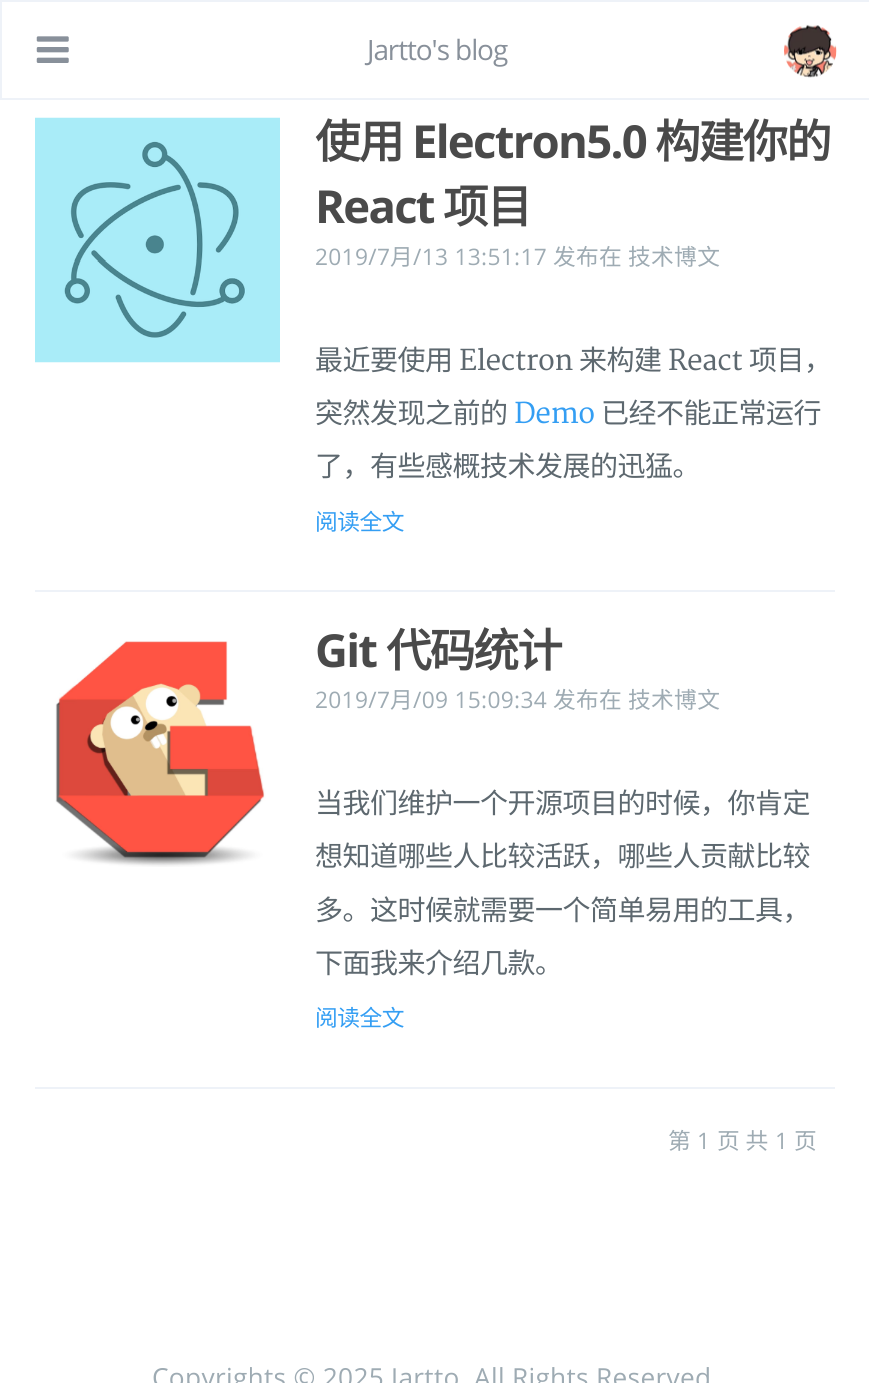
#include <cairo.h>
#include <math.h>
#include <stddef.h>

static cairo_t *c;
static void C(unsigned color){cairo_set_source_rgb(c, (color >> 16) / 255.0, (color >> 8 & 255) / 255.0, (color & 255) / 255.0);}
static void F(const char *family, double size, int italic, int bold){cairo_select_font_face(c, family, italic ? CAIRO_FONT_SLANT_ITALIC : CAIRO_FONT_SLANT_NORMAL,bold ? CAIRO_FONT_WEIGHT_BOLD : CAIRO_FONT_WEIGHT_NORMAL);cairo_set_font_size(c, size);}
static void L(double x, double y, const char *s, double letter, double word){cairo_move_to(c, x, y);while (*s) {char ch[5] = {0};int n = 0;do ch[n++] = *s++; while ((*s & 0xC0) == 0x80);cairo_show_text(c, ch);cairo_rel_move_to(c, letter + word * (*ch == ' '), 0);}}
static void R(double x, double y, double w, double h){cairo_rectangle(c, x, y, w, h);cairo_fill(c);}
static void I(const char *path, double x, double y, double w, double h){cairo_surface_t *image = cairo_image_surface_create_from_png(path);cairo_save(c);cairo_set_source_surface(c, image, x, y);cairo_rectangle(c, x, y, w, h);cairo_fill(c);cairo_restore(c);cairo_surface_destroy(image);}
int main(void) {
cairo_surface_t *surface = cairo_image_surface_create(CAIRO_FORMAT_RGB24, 869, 1383);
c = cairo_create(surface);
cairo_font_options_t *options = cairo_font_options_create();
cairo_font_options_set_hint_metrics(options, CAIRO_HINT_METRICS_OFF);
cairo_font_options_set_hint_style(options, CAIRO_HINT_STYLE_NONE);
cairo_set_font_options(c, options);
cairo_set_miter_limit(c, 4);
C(0xffffff);
cairo_paint(c);
cairo_rectangle(c,1,1,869,98);
C(0xeef2f8);
cairo_stroke(c);
I("1.png",36,36,33,27);
F("Open Sans",28,0,0);
C(0x88909a);
L(367,60,"Jartto's blog",-1.1,0);
I("2.png",784,24,53,54);
C(0xeef2f8);
R(35,590,800,2);
I("3.png",35,117,245,246);
F("Noto Sans CJK SC",45.5,0,1);
C(0x4a4a4a);
L(315,158,"使用",-1.75,0);
F("Open Sans",45.5,0,1);
L(412,158,"Electron5.0",-1.75,0);
F("Noto Sans CJK SC",45.5,0,1);
L(655,158,"构建你的",-1.75,0);
F("Open Sans",45.5,0,1);
L(315,223,"React",-1.75,0);
F("Noto Sans CJK SC",45.5,0,1);
L(443,223,"项目",-1.75,0);
F("Open Sans",22.75,0,0);
C(0x9eabb3);
L(315,265,"2019/7",.3,0);
F("Noto Sans CJK SC",22.75,0,0);
L(390,265,"月",.3,0);
F("Open Sans",22.75,0,0);
L(413,265,"/13 13:51:17",.3,0);
F("Noto Sans CJK SC",22.75,0,0);
L(553,265,"发布在",.3,0);
L(628,265,"技术博文",.3,0);
F("Noto Sans CJK SC",28,0,0);
C(0x5d686f);
L(315,370,"最近要使用",-.5,0);
F("Merriweather",28,0,0);
L(459,370,"Electron",-.5,0);
F("Noto Sans CJK SC",28,0,0);
L(579,370,"来构建",-.5,0);
F("Merriweather",28,0,0);
L(668,370,"React",-.5,0);
F("Noto Sans CJK SC",28,0,0);
L(749,370,"项目，",-.5,0);
L(315,423,"突然发现之前的",-.5,0);
F("Merriweather",28,0,0);
C(0x349ef3);
L(514,423,"Demo",-.5,0);
F("Noto Sans CJK SC",28,0,0);
C(0x5d686f);
L(601,423,"已经不能正常运行",-.5,0);
L(315,476,"了，有些感概技术发展的迅猛。",-.5,0);
F("Noto Sans CJK SC",22.75,0,0);
C(0x349ef3);
L(315,530,"阅读全文",-.5,0);
C(0xeef2f8);
R(35,1087,800,2);
I("4.png",55,641,211,226);
F("Open Sans",45.5,0,1);
C(0x4a4a4a);
L(315,667,"Git",-1.75,0);
F("Noto Sans CJK SC",45.5,0,1);
L(386,667,"代码统计",-1.75,0);
F("Open Sans",22.75,0,0);
C(0x9eabb3);
L(315,708,"2019/7",.3,0);
F("Noto Sans CJK SC",22.75,0,0);
L(390,708,"月",.3,0);
F("Open Sans",22.75,0,0);
L(413,708,"/09 15:09:34",.3,0);
F("Noto Sans CJK SC",22.75,0,0);
L(553,708,"发布在",.3,0);
L(628,708,"技术博文",.3,0);
F("Noto Sans CJK SC",28,0,0);
C(0x5d686f);
L(315,813,"当我们维护一个开源项目的时候，你肯定",-.5,0);
L(315,866,"想知道哪些人比较活跃，哪些人贡献比较",-.5,0);
L(315,920,"多。这时候就需要一个简单易用的工具，",-.5,0);
L(315,973,"下面我来介绍几款。",-.5,0);
F("Noto Sans CJK SC",22.75,0,0);
C(0x349ef3);
L(315,1026,"阅读全文",-.5,0);
C(0x9eabb3);
L(668,1149,"第",.3,0);
F("Open Sans",22.75,0,0);
L(697,1149,"1",.3,0);
F("Noto Sans CJK SC",22.75,0,0);
L(717,1149,"页 共",.3,0);
F("Open Sans",22.75,0,0);
L(775,1149,"1",.3,0);
F("Noto Sans CJK SC",22.75,0,0);
L(794,1149,"页",.3,0);
F("Open Sans",26.25,0,0);
L(152,1387,"Copyrights © 2025 Jartto. All Rights Reserved",.3,0);
cairo_surface_write_to_png(surface, "o.png");
cairo_font_options_destroy(options);
cairo_destroy(c);
cairo_surface_destroy(surface);
return 0;
}
